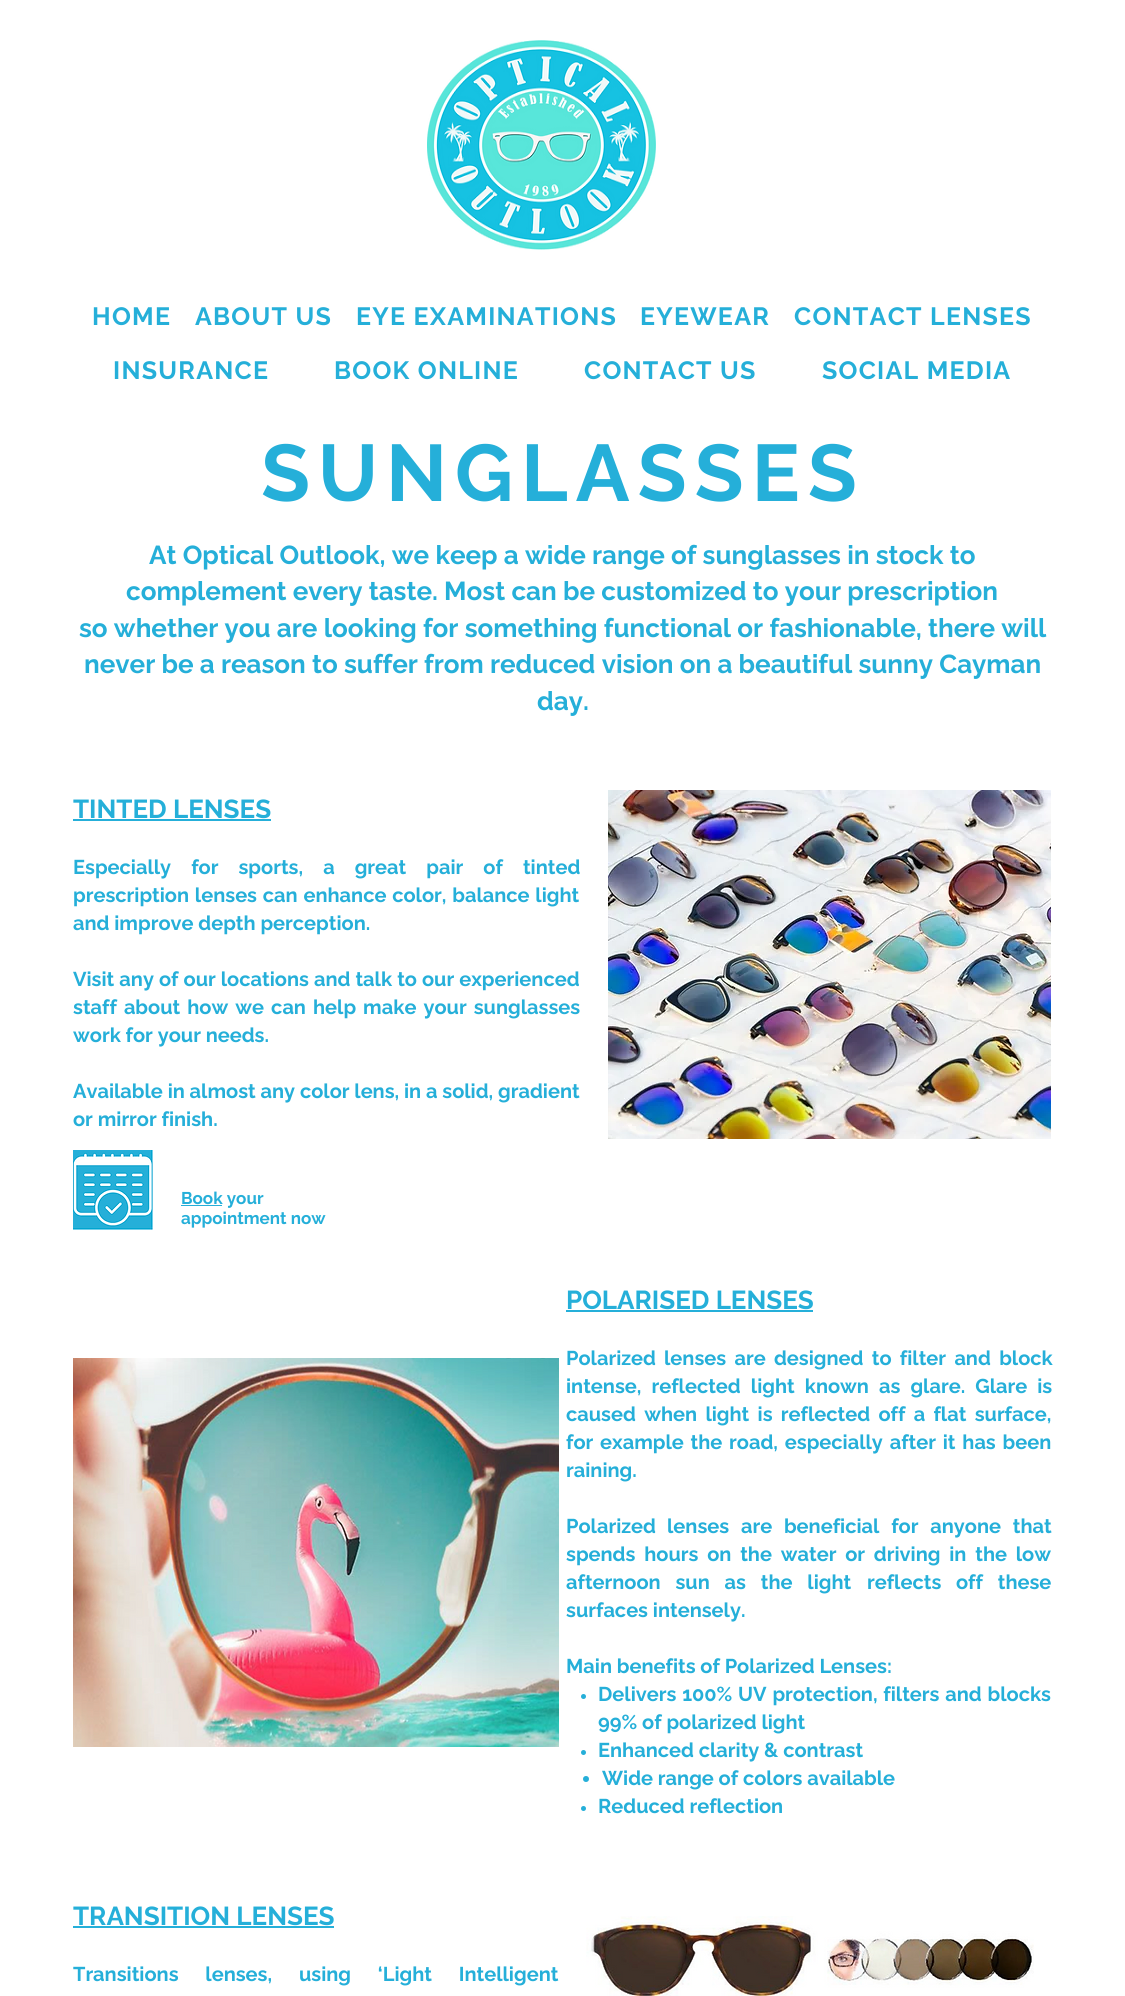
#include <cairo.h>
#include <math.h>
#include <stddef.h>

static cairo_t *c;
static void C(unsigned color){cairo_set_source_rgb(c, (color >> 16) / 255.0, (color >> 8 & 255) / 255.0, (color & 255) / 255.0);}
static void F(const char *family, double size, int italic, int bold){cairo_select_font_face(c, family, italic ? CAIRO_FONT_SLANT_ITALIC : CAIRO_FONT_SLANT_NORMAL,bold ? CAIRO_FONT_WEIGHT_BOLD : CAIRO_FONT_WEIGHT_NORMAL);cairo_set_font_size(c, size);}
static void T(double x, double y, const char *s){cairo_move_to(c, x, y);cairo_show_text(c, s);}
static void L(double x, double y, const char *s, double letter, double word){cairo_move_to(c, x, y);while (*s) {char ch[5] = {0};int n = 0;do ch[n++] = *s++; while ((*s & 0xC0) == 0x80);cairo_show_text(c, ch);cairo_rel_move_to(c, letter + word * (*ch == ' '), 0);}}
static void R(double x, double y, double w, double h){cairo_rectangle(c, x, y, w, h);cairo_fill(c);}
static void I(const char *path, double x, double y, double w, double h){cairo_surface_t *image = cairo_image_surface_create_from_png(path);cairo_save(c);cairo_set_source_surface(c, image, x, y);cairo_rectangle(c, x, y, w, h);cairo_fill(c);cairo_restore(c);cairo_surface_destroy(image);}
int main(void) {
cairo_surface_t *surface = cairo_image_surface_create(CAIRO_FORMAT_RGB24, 1125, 1996);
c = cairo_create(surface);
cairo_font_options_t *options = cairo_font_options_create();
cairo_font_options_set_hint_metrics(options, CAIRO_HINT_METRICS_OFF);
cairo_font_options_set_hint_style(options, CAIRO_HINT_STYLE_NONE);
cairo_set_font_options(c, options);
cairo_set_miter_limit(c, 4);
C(0xffffff);
cairo_paint(c);
I("1.png",427,40,229,210);
F("Raleway",25,0,1);
C(0x25afd9);
L(92,325,"HOME",1.25,0);
L(195,325,"ABOUT US",1.25,0);
L(356,325,"EYE EXAMINATIONS",1.25,0);
L(640,325,"EYEWEAR",1.25,0);
L(794,325,"CONTACT LENSES",1.25,0);
L(113,379,"INSURANCE",1.25,0);
L(334,379,"BOOK ONLINE",1.25,0);
L(584,379,"CONTACT US",1.25,0);
L(822,379,"SOCIAL MEDIA",1.25,0);
F("Raleway",80,0,1);
L(261,501,"SUNGLASSES",8,0);
F("Raleway",26,0,1);
T(149,564,"At Optical Outlook, we keep a wide range of sunglasses in stock to");
T(126,600,"complement every taste. Most can be customized to your prescription");
T(79,637,"so whether you are looking for something functional or fashionable, there will");
T(84,673,"never be a reason to suffer from reduced vision on a beautiful sunny Cayman");
T(537,710,"day.");
T(73,818,"TINTED LENSES");
R(73,819,198,2);
F("Raleway",20,0,1);
L(73,874,"Especially for sports, a great pair of tinted",0,15.25);
L(73,902,"prescription lenses can enhance color, balance light",0,1);
T(73,930,"and improve depth perception.");
L(73,986,"Visit any of our locations and talk to our experienced",0,.25);
L(73,1014,"staff about how we can help make your sunglasses",0,2.25);
T(73,1042,"work for your needs.");
T(73,1098,"Available in almost any color lens, in a solid, gradient");
T(73,1126,"or mirror finish.");
I("2.png",608,790,443,349);
I("3.png",73,1150,80,80);
R(181,1205,41,1);
F("Raleway",17,0,1);
T(181,1204,"Book your");
T(181,1224,"appointment now");
I("4.png",73,1358,486,389);
F("Raleway",26,0,1);
T(566,1309,"POLARISED LENSES");
R(566,1310,247,2);
F("Raleway",20,0,1);
T(566,1365,"Polarized");
L(664,1365,"lenses are designed to filter and block",0,3.5);
L(566,1393,"intense, reflected light known as glare. Glare is",0,5.25);
L(566,1421,"caused when light is reflected off a flat surface,",0,3.5);
L(566,1449,"for example the road, especially after it has been",0,2);
T(566,1477,"raining.");
T(566,1533,"Polarized");
L(667,1533,"lenses are beneficial for anyone that",0,7);
L(566,1561,"spends hours on the water or driving in the low",0,4);
L(566,1589,"afternoon sun as the light",0,10);
T(867,1589,"reflects");
L(956,1589,"off these",0,10);
T(566,1617,"surfaces intensely.");
T(566,1673,"Main benefits of Polarized Lenses:");
cairo_new_path(c);
cairo_arc(c,583.5,1696.5,2.5,0,2 * M_PI);
cairo_fill(c);
L(598,1701,"Delivers 100% UV protection, filters and blocks",0,1);
T(598,1729,"99% of polarized light");
cairo_new_path(c);
cairo_arc(c,583.5,1752.5,2.5,0,2 * M_PI);
cairo_fill(c);
T(598,1757,"Enhanced clarity & contrast");
cairo_new_path(c);
cairo_arc(c,586,1779,3,0,2 * M_PI);
cairo_fill(c);
T(602,1785,"Wide range of colors available");
cairo_new_path(c);
cairo_arc(c,583.5,1808.5,2.5,0,2 * M_PI);
cairo_fill(c);
T(598,1813,"Reduced reflection");
F("Raleway",26,0,1);
T(73,1925,"TRANSITION LENSES");
R(73,1926,261,2);
F("Raleway",20,0,1);
L(73,1981,"Transitions lenses, using ‘Light Intelligent",0,22);
I("5.png",586,1916,448,80);
cairo_surface_write_to_png(surface, "o.png");
cairo_font_options_destroy(options);
cairo_destroy(c);
cairo_surface_destroy(surface);
return 0;
}
